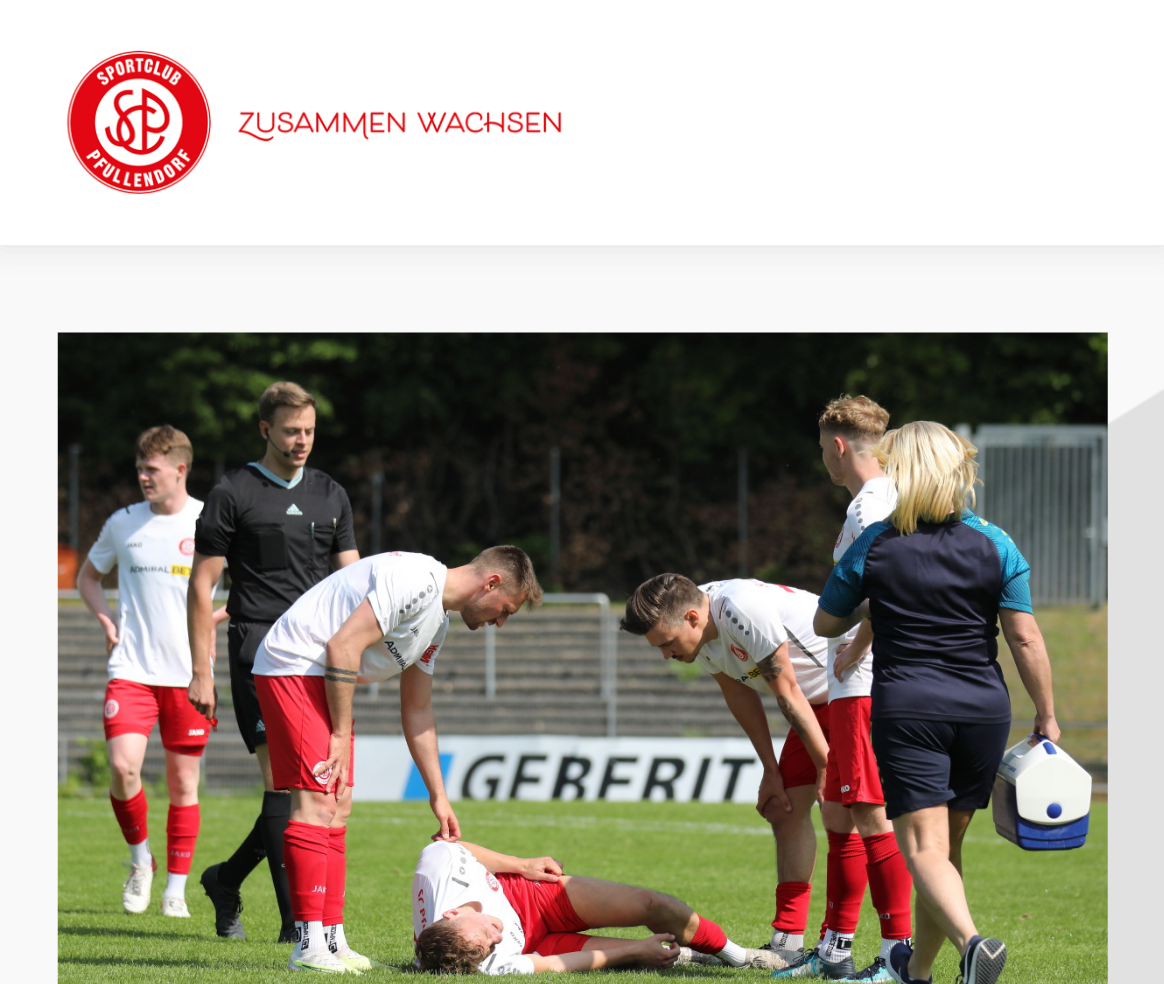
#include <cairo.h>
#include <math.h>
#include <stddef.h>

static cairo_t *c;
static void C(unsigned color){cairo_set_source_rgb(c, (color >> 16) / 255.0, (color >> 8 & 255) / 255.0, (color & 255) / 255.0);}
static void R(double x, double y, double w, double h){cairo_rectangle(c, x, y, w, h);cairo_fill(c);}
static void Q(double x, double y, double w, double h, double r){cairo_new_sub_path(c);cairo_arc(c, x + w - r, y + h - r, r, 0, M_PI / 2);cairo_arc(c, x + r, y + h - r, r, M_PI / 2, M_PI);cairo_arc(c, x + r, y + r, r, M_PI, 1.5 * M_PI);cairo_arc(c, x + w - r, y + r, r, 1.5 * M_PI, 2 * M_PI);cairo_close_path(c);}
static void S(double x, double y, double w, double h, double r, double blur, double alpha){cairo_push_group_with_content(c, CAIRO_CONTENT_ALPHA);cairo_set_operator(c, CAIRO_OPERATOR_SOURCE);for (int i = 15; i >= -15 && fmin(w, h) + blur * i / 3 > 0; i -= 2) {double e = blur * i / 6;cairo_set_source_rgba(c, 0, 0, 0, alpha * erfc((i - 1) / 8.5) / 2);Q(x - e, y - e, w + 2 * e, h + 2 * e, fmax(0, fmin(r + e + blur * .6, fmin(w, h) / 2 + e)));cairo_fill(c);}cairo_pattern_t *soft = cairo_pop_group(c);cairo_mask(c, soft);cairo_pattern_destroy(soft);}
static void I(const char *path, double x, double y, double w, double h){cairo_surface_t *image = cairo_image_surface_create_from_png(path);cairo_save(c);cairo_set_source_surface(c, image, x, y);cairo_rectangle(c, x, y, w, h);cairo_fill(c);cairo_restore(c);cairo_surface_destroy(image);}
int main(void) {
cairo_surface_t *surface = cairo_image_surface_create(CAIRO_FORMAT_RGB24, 1164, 984);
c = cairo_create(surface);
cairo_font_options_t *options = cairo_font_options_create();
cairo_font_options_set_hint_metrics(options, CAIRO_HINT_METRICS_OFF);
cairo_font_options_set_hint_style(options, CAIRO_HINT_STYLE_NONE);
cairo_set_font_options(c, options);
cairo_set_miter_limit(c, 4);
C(0xffffff);
cairo_paint(c);
I("1.png",0,245,1164,739);
C(0x000000);
S(0,0,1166,245,0,17.5,.1);
C(0xffffff);
R(0,0,1164,245);
I("2.png",66,50,496,145);
I("3.png",57,332,1051,652);
cairo_surface_write_to_png(surface, "o.png");
cairo_font_options_destroy(options);
cairo_destroy(c);
cairo_surface_destroy(surface);
return 0;
}
